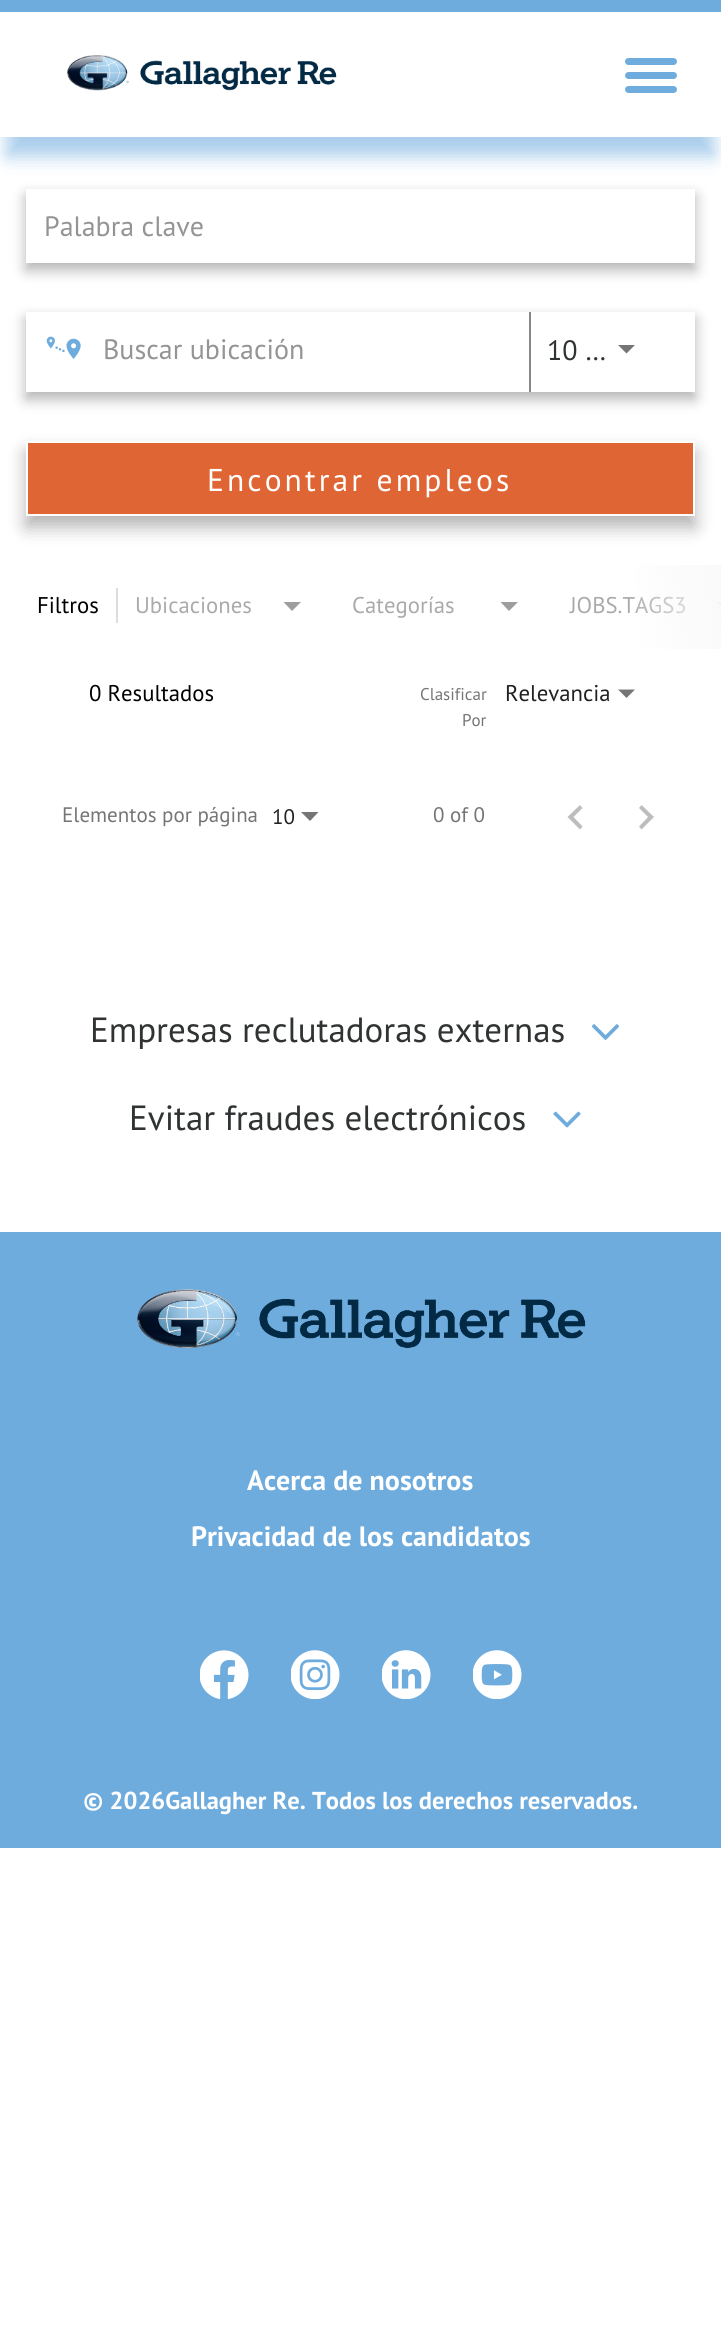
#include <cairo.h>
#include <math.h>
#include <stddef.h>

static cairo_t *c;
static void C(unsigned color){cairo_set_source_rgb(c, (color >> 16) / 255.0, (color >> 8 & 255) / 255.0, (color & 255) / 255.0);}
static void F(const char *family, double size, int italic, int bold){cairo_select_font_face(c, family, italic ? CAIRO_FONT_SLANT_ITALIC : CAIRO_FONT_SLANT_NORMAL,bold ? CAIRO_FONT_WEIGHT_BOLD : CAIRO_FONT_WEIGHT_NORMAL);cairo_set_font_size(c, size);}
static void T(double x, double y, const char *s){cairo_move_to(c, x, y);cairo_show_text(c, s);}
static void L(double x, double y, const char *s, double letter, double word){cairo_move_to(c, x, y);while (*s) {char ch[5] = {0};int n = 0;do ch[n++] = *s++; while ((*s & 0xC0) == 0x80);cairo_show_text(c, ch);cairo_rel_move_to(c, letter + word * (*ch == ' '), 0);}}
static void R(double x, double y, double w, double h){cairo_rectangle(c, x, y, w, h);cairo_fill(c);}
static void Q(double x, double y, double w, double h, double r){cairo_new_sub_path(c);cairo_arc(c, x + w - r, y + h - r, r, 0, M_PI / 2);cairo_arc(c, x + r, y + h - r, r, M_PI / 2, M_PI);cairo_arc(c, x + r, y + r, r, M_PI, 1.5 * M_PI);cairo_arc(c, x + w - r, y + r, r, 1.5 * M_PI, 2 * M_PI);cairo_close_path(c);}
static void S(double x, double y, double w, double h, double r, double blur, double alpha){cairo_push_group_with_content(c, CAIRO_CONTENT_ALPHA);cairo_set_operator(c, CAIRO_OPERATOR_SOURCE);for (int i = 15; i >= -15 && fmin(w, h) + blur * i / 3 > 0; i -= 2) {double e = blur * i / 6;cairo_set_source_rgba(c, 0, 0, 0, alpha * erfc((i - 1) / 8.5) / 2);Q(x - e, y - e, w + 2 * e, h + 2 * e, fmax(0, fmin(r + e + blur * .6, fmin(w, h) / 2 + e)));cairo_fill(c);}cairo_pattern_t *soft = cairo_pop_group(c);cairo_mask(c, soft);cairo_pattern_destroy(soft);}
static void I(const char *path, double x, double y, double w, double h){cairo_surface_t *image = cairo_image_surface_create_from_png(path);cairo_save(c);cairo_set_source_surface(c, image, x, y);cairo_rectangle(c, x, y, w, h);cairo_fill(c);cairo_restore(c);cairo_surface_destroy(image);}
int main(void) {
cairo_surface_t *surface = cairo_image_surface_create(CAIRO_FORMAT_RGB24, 721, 2334);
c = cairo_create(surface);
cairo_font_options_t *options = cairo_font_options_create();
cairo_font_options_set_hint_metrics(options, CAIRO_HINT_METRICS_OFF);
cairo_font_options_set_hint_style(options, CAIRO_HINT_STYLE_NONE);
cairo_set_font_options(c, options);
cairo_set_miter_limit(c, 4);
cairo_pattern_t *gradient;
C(0xffffff);
cairo_paint(c);
C(0x6facde);
S(7,33,707,123,0,9,.6);
C(0x6facde);
R(0,0,721,12);
C(0xffffff);
R(0,16,721,121);
I("1.png",67,55,270,36);
C(0x6facde);
Q(625,72,52,7,3.5);
cairo_fill(c);
Q(625,58,52,7,3.5);
cairo_fill(c);
Q(625,86,52,7,3.5);
cairo_fill(c);
cairo_save(c);
cairo_set_fill_rule(c,CAIRO_FILL_RULE_EVEN_ODD);
cairo_new_path(c);
cairo_move_to(c,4,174);
cairo_line_to(c,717,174);
cairo_line_to(c,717,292);
cairo_line_to(c,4,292);
cairo_close_path(c);
cairo_move_to(c,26,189);
cairo_line_to(c,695,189);
cairo_line_to(c,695,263);
cairo_line_to(c,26,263);
cairo_close_path(c);
cairo_clip(c);
C(0x000000);
S(26,196,669,74,0,7,.3);
cairo_restore(c);
C(0xffffff);
Q(26,189,634,74,37);
cairo_fill(c);
F("PT Sans",28,0,0);
C(0x949494);
T(44,236,"Palabra clave");
cairo_save(c);
cairo_set_fill_rule(c,CAIRO_FILL_RULE_EVEN_ODD);
cairo_new_path(c);
cairo_move_to(c,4,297);
cairo_line_to(c,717,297);
cairo_line_to(c,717,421);
cairo_line_to(c,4,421);
cairo_close_path(c);
cairo_move_to(c,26,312);
cairo_line_to(c,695,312);
cairo_line_to(c,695,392);
cairo_line_to(c,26,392);
cairo_close_path(c);
cairo_clip(c);
C(0x000000);
S(26,319,669,80,0,7,.3);
cairo_restore(c);
C(0xffffff);
Q(26,312,489,73,36.5);
cairo_fill(c);
I("2.png",46,336,35,23);
C(0x949494);
T(103,359,"Buscar ubicación");
C(0x888888);
R(529,312,2,80);
C(0x303333);
T(547,360,"10 …");
C(0x757575);
cairo_new_path(c);
cairo_move_to(c,618,345);
cairo_line_to(c,635,345);
cairo_line_to(c,626.5,353.5);
cairo_close_path(c);
cairo_fill(c);
C(0x000000);
S(26,452,669,75,0,9,.3);
C(0xdf6534);
cairo_rectangle(c,27,442,667,73);
cairo_fill_preserve(c);
C(0xffffff);
cairo_stroke(c);
F("PT Sans",31.5,0,0);
L(207,491,"Encontrar empleos",3.1,0);
F("PT Sans",22.75,0,0);
C(0xaaaaaa);
T(570,613,"JOBS.TAGS3");
C(0x9e9e9e);
cairo_new_path(c);
cairo_move_to(c,717.5,602);
cairo_line_to(c,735,602);
cairo_line_to(c,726,611);
cairo_close_path(c);
cairo_fill(c);
gradient = cairo_pattern_create_linear(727,599,628,616);
cairo_pattern_add_color_stop_rgba(gradient,0,0.008,0,0.141,1);
cairo_pattern_add_color_stop_rgba(gradient,0,0.976,0.976,0.976,1);
cairo_pattern_add_color_stop_rgba(gradient,1,0.976,0.976,0.976,0);
cairo_set_source(c,gradient);
cairo_pattern_destroy(gradient);
R(635,565,86,84);
C(0xdddddd);
R(116,588,2,35);
C(0x000000);
T(37,613,"Filtros");
C(0xaaaaaa);
T(135,613,"Ubicaciones");
C(0x9e9e9e);
cairo_new_path(c);
cairo_move_to(c,283.5,602);
cairo_line_to(c,301,602);
cairo_line_to(c,292,611);
cairo_close_path(c);
cairo_fill(c);
C(0xaaaaaa);
T(352,613,"Categorías");
C(0x9e9e9e);
cairo_new_path(c);
cairo_move_to(c,500.5,602);
cairo_line_to(c,518,602);
cairo_line_to(c,509,611);
cairo_close_path(c);
cairo_fill(c);
C(0x000000);
T(89,701,"0 Resultados");
F("PT Sans",17,0,0);
C(0x757575);
T(420,700,"Clasificar");
T(462,726,"Por");
F("PT Sans",22.75,0,0);
C(0x212121);
T(505,701,"Relevancia");
C(0x757575);
cairo_new_path(c);
cairo_move_to(c,618,689.5);
cairo_line_to(c,635,689.5);
cairo_line_to(c,626.5,698);
cairo_close_path(c);
cairo_fill(c);
F("PT Sans",21,0,0);
T(62,822,"Elementos por página");
C(0x212121);
T(272,824,"10");
C(0x757575);
cairo_new_path(c);
cairo_move_to(c,301,812);
cairo_line_to(c,318.5,812);
cairo_line_to(c,310,821);
cairo_close_path(c);
cairo_fill(c);
T(433,822,"0 of 0");
C(0xbdbdbd);
cairo_new_path(c);
cairo_move_to(c,582.5,808);
cairo_line_to(c,580,805);
cairo_line_to(c,567.5,817);
cairo_line_to(c,580,829.5);
cairo_line_to(c,582.5,826.5);
cairo_line_to(c,573.5,817);
cairo_close_path(c);
cairo_fill(c);
cairo_new_path(c);
cairo_move_to(c,641.5,805);
cairo_line_to(c,639,808);
cairo_line_to(c,648,817);
cairo_line_to(c,639,826.5);
cairo_line_to(c,641.5,829.5);
cairo_line_to(c,654,817);
cairo_close_path(c);
cairo_fill(c);
F("PT Sans",35,0,0);
C(0x303333);
T(90,1042,"Empresas reclutadoras externas");
I("3.png",591,1024,29,16);
T(129,1130,"Evitar fraudes electrónicos");
I("4.png",553,1111,28,17);
C(0x6facde);
R(0,1232,721,616);
I("5.png",137,1289,449,60);
F("PT Sans",28,0,1);
C(0xffffff);
T(247,1490,"Acerca de nosotros");
T(191,1546,"Privacidad de los candidatos");
I("6.png",200,1650,49,49);
I("7.png",291,1650,49,49);
I("8.png",382,1650,49,49);
I("9.png",473,1650,49,49);
F("PT Sans",24.5,0,1);
T(83,1809,"© 2026Gallagher Re. Todos los derechos reservados.");
cairo_surface_write_to_png(surface, "o.png");
cairo_font_options_destroy(options);
cairo_destroy(c);
cairo_surface_destroy(surface);
return 0;
}
